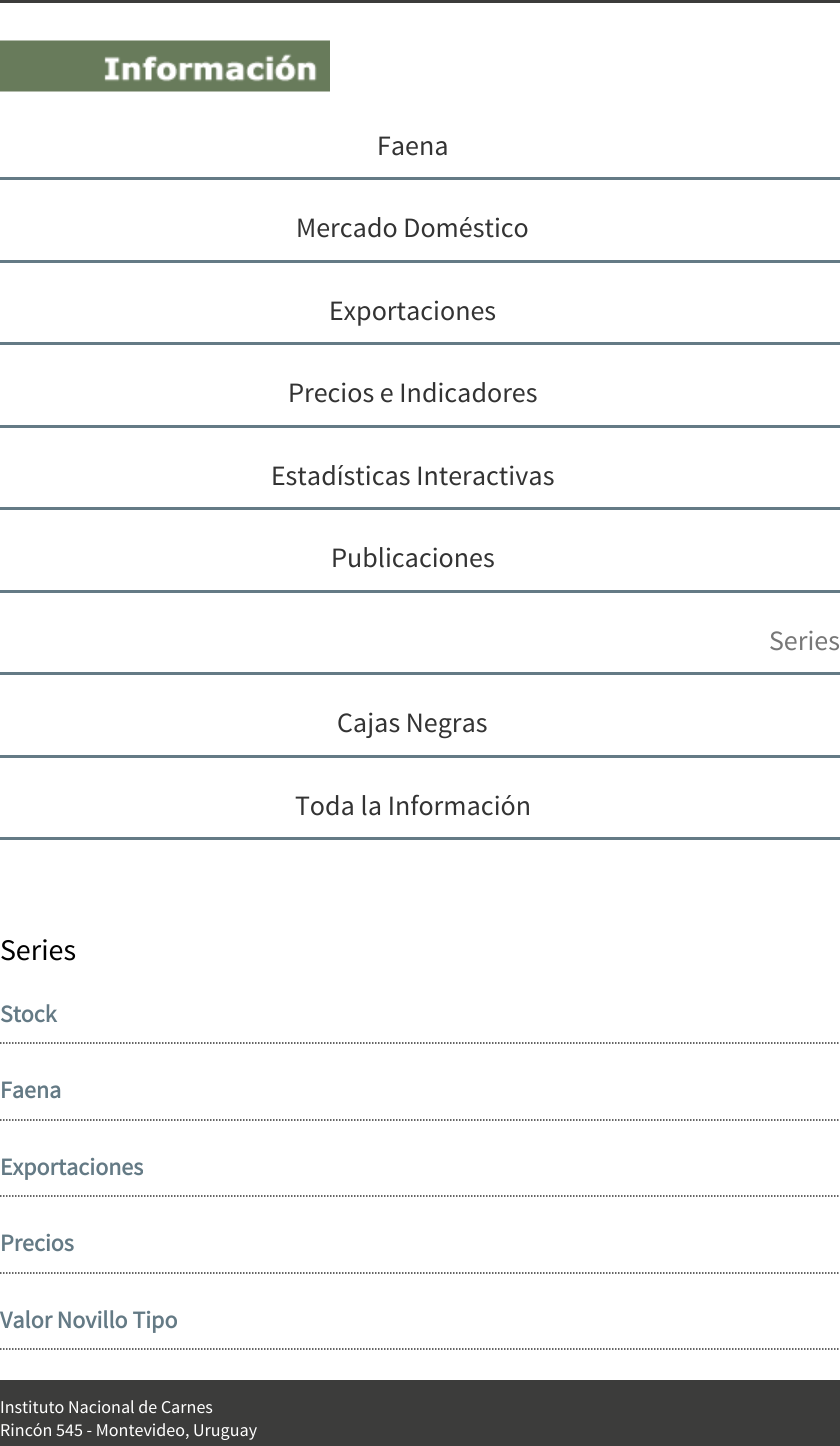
#include <cairo.h>
#include <math.h>
#include <stddef.h>

static cairo_t *c;
static void C(unsigned color){cairo_set_source_rgb(c, (color >> 16) / 255.0, (color >> 8 & 255) / 255.0, (color & 255) / 255.0);}
static void F(const char *family, double size, int italic, int bold){cairo_select_font_face(c, family, italic ? CAIRO_FONT_SLANT_ITALIC : CAIRO_FONT_SLANT_NORMAL,bold ? CAIRO_FONT_WEIGHT_BOLD : CAIRO_FONT_WEIGHT_NORMAL);cairo_set_font_size(c, size);}
static void T(double x, double y, const char *s){cairo_move_to(c, x, y);cairo_show_text(c, s);}
static void R(double x, double y, double w, double h){cairo_rectangle(c, x, y, w, h);cairo_fill(c);}
static void I(const char *path, double x, double y, double w, double h){cairo_surface_t *image = cairo_image_surface_create_from_png(path);cairo_save(c);cairo_set_source_surface(c, image, x, y);cairo_rectangle(c, x, y, w, h);cairo_fill(c);cairo_restore(c);cairo_surface_destroy(image);}
int main(void) {
cairo_surface_t *surface = cairo_image_surface_create(CAIRO_FORMAT_RGB24, 840, 1446);
c = cairo_create(surface);
cairo_font_options_t *options = cairo_font_options_create();
cairo_font_options_set_hint_metrics(options, CAIRO_HINT_METRICS_OFF);
cairo_font_options_set_hint_style(options, CAIRO_HINT_STYLE_NONE);
cairo_set_font_options(c, options);
cairo_set_miter_limit(c, 4);
C(0xffffff);
cairo_paint(c);
C(0x3c3c3b);
R(0,0,840,3);
I("1.png",0,40,330,52);
C(0x647a85);
R(0,177,840,3);
F("Source Sans Pro",28,0,0);
C(0x333333);
T(377,155,"Faena");
C(0x647a85);
R(0,260,840,3);
C(0x333333);
T(296,237,"Mercado Doméstico");
C(0x647a85);
R(0,342,840,3);
C(0x333333);
T(329,320,"Exportaciones");
C(0x647a85);
R(0,425,840,3);
C(0x333333);
T(288,402,"Precios e Indicadores");
C(0x647a85);
R(0,507,840,3);
C(0x333333);
T(271,485,"Estadísticas Interactivas");
C(0x647a85);
R(0,590,840,3);
C(0x333333);
T(331,567,"Publicaciones");
C(0x647a85);
R(0,672,840,3);
C(0x777777);
T(769,650,"Series");
C(0x647a85);
R(0,755,840,3);
C(0x333333);
T(337,732,"Cajas Negras");
C(0x647a85);
R(0,837,840,3);
C(0x333333);
T(295,815,"Toda la Información");
F("Source Sans Pro",30,0,0);
C(0x000000);
T(0,960,"Series");
cairo_new_path(c);
cairo_move_to(c,0,1043);
cairo_line_to(c,840,1043);
C(0x333333);
cairo_set_line_width(c,1.5);
cairo_set_dash(c,(double[]){1.5,1.5},2,0);
cairo_stroke(c);
F("Source Sans Pro",24,0,1);
C(0x647a85);
T(0,1022,"Stock");
cairo_new_path(c);
cairo_move_to(c,0,1120);
cairo_line_to(c,840,1120);
C(0x333333);
cairo_stroke(c);
C(0x647a85);
T(0,1098,"Faena");
cairo_new_path(c);
cairo_move_to(c,0,1196);
cairo_line_to(c,840,1196);
C(0x333333);
cairo_stroke(c);
C(0x647a85);
T(0,1175,"Exportaciones");
cairo_new_path(c);
cairo_move_to(c,0,1273);
cairo_line_to(c,840,1273);
C(0x333333);
cairo_stroke(c);
C(0x647a85);
T(0,1251,"Precios");
cairo_new_path(c);
cairo_move_to(c,0,1349);
cairo_line_to(c,840,1349);
C(0x333333);
cairo_stroke(c);
C(0x647a85);
T(0,1328,"Valor Novillo Tipo");
C(0x3c3c3b);
R(0,1380,840,66);
F("Source Sans Pro",18,0,0);
C(0xffffff);
T(0,1413,"Instituto Nacional de Carnes");
T(0,1436,"Rincón 545 - Montevideo, Uruguay");
cairo_surface_write_to_png(surface, "o.png");
cairo_font_options_destroy(options);
cairo_destroy(c);
cairo_surface_destroy(surface);
return 0;
}
